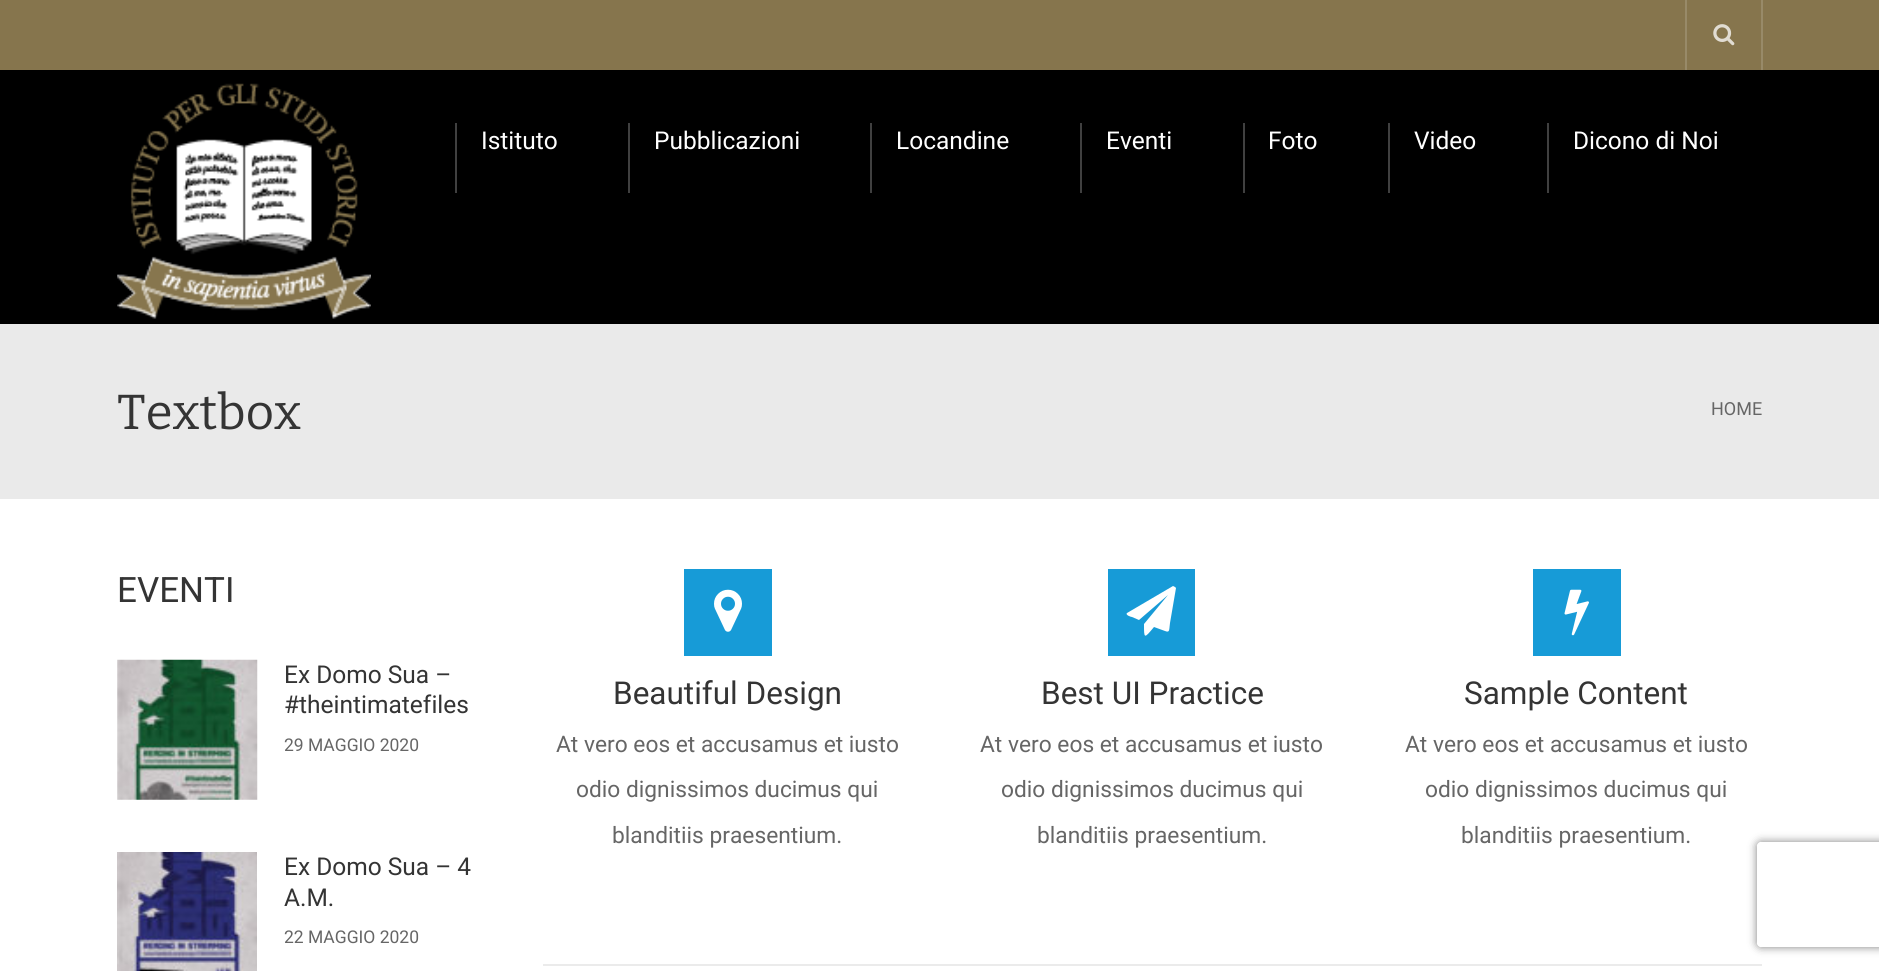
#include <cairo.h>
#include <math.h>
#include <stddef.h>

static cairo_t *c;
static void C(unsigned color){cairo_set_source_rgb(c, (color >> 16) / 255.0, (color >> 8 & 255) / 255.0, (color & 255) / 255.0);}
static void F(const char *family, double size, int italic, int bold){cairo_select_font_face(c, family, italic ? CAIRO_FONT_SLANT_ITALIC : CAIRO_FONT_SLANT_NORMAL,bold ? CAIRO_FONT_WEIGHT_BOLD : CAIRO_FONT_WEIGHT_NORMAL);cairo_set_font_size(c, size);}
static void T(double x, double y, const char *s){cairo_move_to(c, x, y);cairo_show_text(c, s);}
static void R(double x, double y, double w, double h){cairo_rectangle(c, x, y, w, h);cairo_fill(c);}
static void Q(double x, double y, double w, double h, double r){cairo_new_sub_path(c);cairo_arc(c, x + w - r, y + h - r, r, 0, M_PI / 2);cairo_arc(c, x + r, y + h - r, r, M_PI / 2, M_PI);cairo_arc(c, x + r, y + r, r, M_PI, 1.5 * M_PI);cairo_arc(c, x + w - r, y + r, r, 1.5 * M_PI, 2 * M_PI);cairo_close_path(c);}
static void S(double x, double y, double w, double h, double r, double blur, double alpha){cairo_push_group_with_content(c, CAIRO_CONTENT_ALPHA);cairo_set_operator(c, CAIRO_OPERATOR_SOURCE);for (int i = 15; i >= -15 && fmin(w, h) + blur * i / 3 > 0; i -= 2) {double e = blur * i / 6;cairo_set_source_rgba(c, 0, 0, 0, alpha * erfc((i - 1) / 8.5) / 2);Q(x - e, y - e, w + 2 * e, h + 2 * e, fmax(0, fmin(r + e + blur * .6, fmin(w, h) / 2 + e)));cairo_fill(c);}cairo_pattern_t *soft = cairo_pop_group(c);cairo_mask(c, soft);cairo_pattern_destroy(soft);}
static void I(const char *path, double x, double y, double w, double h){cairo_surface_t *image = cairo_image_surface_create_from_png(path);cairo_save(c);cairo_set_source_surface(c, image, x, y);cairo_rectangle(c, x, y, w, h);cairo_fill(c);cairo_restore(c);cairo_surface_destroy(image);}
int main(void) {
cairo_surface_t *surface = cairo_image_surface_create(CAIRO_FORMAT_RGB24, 1879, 971);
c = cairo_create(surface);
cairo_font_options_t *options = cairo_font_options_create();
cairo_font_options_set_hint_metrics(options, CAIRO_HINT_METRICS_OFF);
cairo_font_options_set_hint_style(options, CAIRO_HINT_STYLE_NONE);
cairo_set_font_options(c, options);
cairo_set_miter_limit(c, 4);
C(0xffffff);
cairo_paint(c);
C(0x86754d);
R(0,0,1879,70);
C(0x988a68);
R(1761,0,2,70);
R(1685,0,2,70);
I("1.png",1713,24,22,22);
C(0x000000);
R(0,70,1879,254);
I("2.png",117,83,254,236);
C(0x404040);
R(455,123,2,70);
F("Roboto",24.5,0,0);
C(0xffffff);
T(481,149,"Istituto");
C(0x404040);
R(628,123,2,70);
C(0xffffff);
T(654,149,"Pubblicazioni");
C(0x404040);
R(870,123,2,70);
C(0xffffff);
T(896,149,"Locandine");
C(0x404040);
R(1080,123,2,70);
C(0xffffff);
T(1106,149,"Eventi");
C(0x404040);
R(1243,123,2,70);
C(0xffffff);
T(1268,149,"Foto");
C(0x404040);
R(1388,123,2,70);
C(0xffffff);
T(1414,149,"Video");
C(0x404040);
R(1547,123,2,70);
C(0xffffff);
T(1573,149,"Dicono di Noi");
C(0xeaeaea);
R(0,324,1879,175);
F("Bitter Thin",49,0,0);
C(0x343434);
T(117,429,"Textbox");
F("Roboto",18,0,0);
C(0x666666);
T(1711,415,"HOME");
F("Roboto",35,0,0);
C(0x343434);
T(117,602,"EVENTI");
I("3.png",117,659,141,141);
F("Roboto",24.5,0,0);
T(284,683,"Ex Domo Sua –");
T(284,713,"#theintimatefiles");
F("Roboto",17.5,0,0);
C(0x666666);
T(284,751,"29 MAGGIO 2020");
I("4.png",117,852,140,119);
F("Roboto",24.5,0,0);
C(0x343434);
T(284,875,"Ex Domo Sua – 4");
T(284,906,"A.M.");
F("Roboto",17.5,0,0);
C(0x666666);
T(284,943,"22 MAGGIO 2020");
C(0x179bd7);
R(684,569,88,87);
I("5.png",714,589,28,43);
F("Roboto",31.5,0,0);
C(0x343434);
T(613,704,"Beautiful Design");
F("Roboto",22.75,0,0);
C(0x666666);
T(556,752,"At vero eos et accusamus et iusto");
T(576,797,"odio dignissimos ducimus qui");
T(612,843,"blanditiis praesentium.");
C(0x179bd7);
R(1108,569,87,87);
C(0xffffff);
cairo_new_path(c);
cairo_move_to(c,1175,587);
cairo_line_to(c,1176,588);
cairo_line_to(c,1170,623);
cairo_curve_to(c,1169,630,1170,633,1165,631);
cairo_line_to(c,1154,627);
cairo_curve_to(c,1144,639,1144,639,1144,624);
cairo_line_to(c,1168,595);
cairo_line_to(c,1139,620);
cairo_line_to(c,1132,617);
cairo_curve_to(c,1131,617,1125,615,1127,613);
cairo_line_to(c,1173,586);
cairo_close_path(c);
cairo_fill(c);
F("Roboto",31.5,0,0);
C(0x343434);
T(1041,704,"Best UI Practice");
F("Roboto",22.75,0,0);
C(0x666666);
T(980,752,"At vero eos et accusamus et iusto");
T(1001,797,"odio dignissimos ducimus qui");
T(1037,843,"blanditiis praesentium.");
C(0x179bd7);
R(1533,569,88,87);
I("6.png",1564,589,25,47);
F("Roboto",31.5,0,0);
C(0x343434);
T(1464,704,"Sample Content");
F("Roboto",22.75,0,0);
C(0x666666);
T(1405,752,"At vero eos et accusamus et iusto");
T(1425,797,"odio dignissimos ducimus qui");
T(1461,843,"blanditiis praesentium.");
C(0xebebeb);
R(543,964,1219,2);
cairo_save(c);
cairo_set_fill_rule(c,CAIRO_FILL_RULE_EVEN_ODD);
cairo_new_path(c);
cairo_move_to(c,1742,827);
cairo_line_to(c,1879,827);
cairo_line_to(c,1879,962);
cairo_line_to(c,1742,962);
cairo_close_path(c);
cairo_move_to(c,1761,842);
cairo_line_to(c,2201,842);
cairo_curve_to(c,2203,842,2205,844,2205,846);
cairo_line_to(c,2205,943);
cairo_curve_to(c,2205,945,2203,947,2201,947);
cairo_line_to(c,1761,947);
cairo_curve_to(c,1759,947,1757,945,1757,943);
cairo_line_to(c,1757,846);
cairo_curve_to(c,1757,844,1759,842,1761,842);
cairo_close_path(c);
cairo_clip(c);
C(0x808080);
S(1757,842,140,105,4,4.5,1);
cairo_restore(c);
cairo_surface_write_to_png(surface, "o.png");
cairo_font_options_destroy(options);
cairo_destroy(c);
cairo_surface_destroy(surface);
return 0;
}
